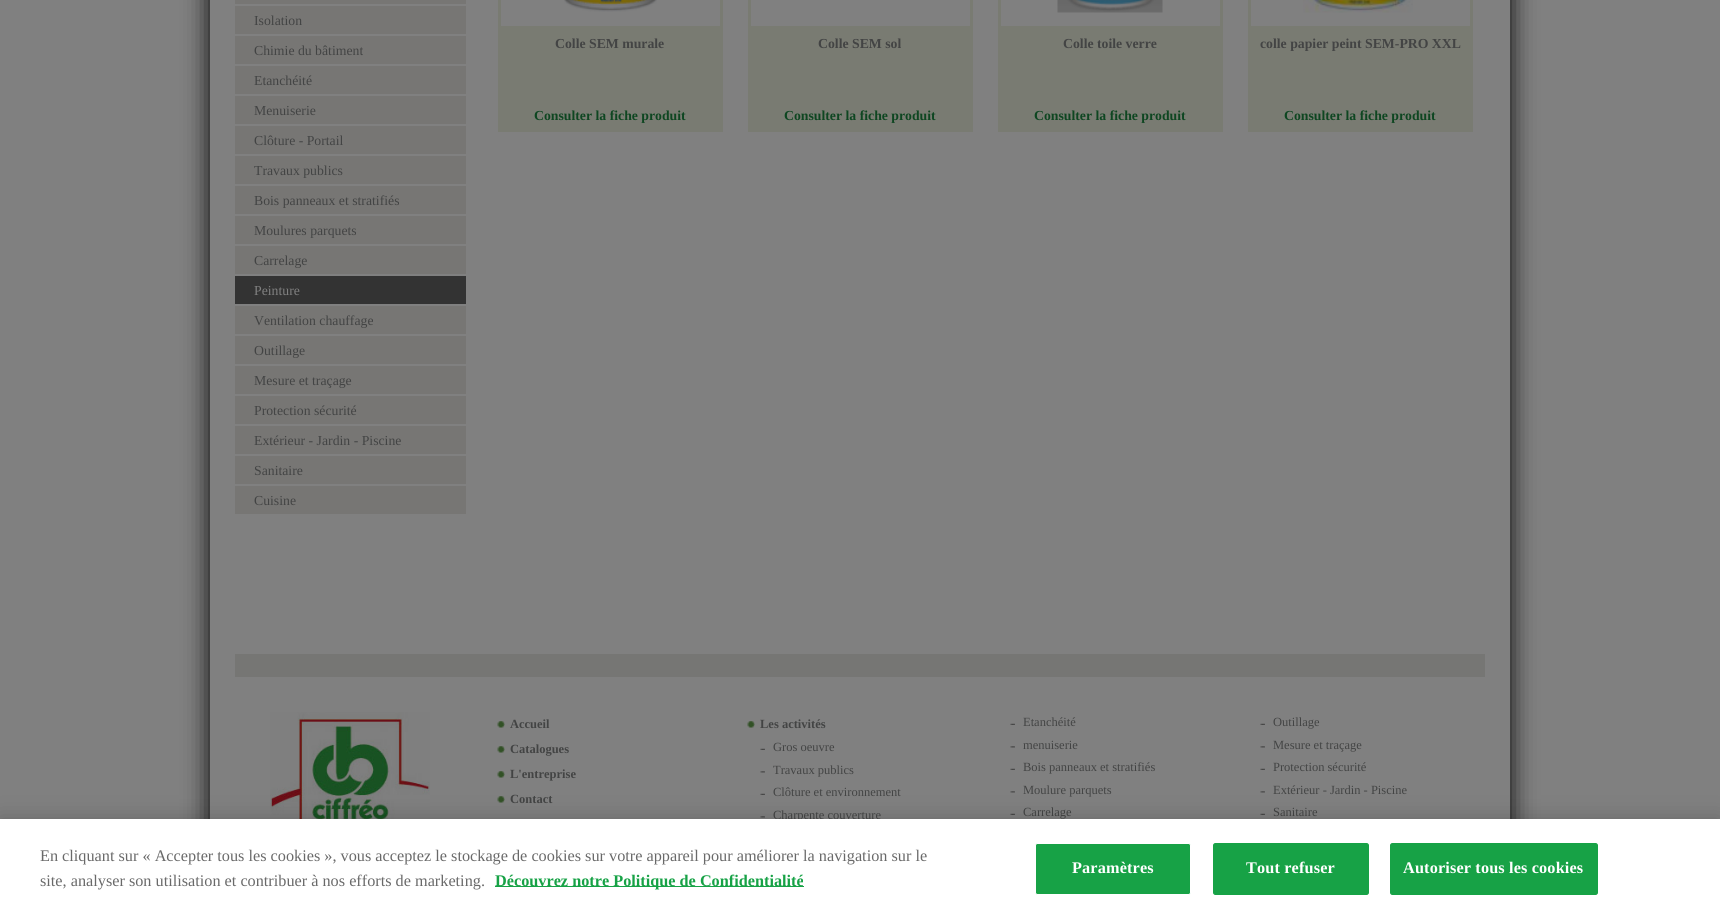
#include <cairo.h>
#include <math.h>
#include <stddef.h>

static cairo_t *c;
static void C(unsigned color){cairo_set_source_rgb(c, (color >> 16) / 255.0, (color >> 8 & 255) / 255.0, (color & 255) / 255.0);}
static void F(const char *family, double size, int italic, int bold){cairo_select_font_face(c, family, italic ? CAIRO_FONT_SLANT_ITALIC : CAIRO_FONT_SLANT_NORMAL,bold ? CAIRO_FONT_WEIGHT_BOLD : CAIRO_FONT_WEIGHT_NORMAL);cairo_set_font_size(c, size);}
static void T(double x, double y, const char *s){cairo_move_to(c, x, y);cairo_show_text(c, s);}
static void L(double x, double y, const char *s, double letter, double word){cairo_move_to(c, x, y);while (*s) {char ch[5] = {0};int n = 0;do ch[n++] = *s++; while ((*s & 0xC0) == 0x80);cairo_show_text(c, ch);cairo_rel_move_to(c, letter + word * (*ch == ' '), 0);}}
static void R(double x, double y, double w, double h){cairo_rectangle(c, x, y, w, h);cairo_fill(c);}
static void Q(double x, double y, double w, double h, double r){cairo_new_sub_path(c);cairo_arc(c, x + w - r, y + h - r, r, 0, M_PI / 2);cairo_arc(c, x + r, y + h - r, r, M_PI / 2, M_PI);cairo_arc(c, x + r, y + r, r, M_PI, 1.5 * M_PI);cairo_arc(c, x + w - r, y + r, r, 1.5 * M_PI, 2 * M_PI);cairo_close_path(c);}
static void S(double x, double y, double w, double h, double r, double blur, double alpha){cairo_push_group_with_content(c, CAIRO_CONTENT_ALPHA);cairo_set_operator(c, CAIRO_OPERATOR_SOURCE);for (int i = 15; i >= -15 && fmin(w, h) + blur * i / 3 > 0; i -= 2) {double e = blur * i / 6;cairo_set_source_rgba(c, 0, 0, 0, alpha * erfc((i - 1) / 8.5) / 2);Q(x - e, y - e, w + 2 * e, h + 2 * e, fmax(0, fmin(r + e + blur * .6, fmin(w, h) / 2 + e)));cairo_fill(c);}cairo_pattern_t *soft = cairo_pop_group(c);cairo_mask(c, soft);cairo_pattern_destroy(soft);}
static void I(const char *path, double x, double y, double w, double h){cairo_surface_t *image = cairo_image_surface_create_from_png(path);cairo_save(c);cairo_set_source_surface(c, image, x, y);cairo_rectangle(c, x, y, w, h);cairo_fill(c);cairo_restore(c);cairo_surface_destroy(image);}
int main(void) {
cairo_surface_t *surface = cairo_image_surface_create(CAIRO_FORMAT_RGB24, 1720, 921);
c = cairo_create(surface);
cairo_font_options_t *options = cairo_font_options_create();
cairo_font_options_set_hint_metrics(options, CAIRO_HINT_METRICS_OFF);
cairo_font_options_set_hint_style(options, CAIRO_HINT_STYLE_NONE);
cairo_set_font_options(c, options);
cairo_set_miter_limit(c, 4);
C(0x808080);
cairo_paint(c);
cairo_save(c);
cairo_set_fill_rule(c,CAIRO_FILL_RULE_EVEN_ODD);
cairo_new_path(c);
cairo_move_to(c,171,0);
cairo_line_to(c,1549,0);
cairo_line_to(c,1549,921);
cairo_line_to(c,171,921);
cairo_close_path(c);
cairo_move_to(c,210,-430);
cairo_line_to(c,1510,-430);
cairo_line_to(c,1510,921);
cairo_line_to(c,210,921);
cairo_close_path(c);
cairo_clip(c);
C(0x000000);
S(210,-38,1300,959,0,12.5,1);
cairo_restore(c);
C(0x777674);
R(235,0,231,4);
R(235,6,231,28);
F("Liberation Serif",13.75,0,0);
C(0x434444);
T(254,25,"Isolation");
C(0x777674);
R(235,36,231,28);
C(0x434444);
T(254,55,"Chimie du bâtiment");
C(0x777674);
R(235,66,231,28);
C(0x434444);
T(254,85,"Etanchéité");
C(0x777674);
R(235,96,231,28);
C(0x434444);
T(254,115,"Menuiserie");
C(0x777674);
R(235,126,231,28);
C(0x434444);
T(254,145,"Clôture - Portail");
C(0x777674);
R(235,156,231,28);
C(0x434444);
T(254,175,"Travaux publics");
C(0x777674);
R(235,186,231,28);
C(0x434444);
T(254,205,"Bois panneaux et stratifiés");
C(0x777674);
R(235,216,231,28);
C(0x434444);
T(254,235,"Moulures parquets");
C(0x777674);
R(235,246,231,28);
C(0x434444);
T(254,265,"Carrelage");
C(0x333333);
R(235,276,231,28);
C(0x808080);
T(254,295,"Peinture");
C(0x777674);
R(235,306,231,28);
C(0x434444);
T(254,325,"Ventilation chauffage");
C(0x777674);
R(235,336,231,28);
C(0x434444);
T(254,355,"Outillage");
C(0x777674);
R(235,366,231,28);
C(0x434444);
T(254,385,"Mesure et traçage");
C(0x777674);
R(235,396,231,28);
C(0x434444);
T(254,415,"Protection sécurité");
C(0x777674);
R(235,426,231,28);
C(0x434444);
T(254,445,"Extérieur - Jardin - Piscine");
C(0x777674);
R(235,456,231,28);
C(0x434444);
T(254,475,"Sanitaire");
C(0x777674);
R(235,486,231,28);
C(0x434444);
T(254,505,"Cuisine");
C(0x797b72);
R(501,0,222,129);
R(498,129,225,3);
R(498,0,3,131);
C(0x808080);
R(501,0,219,26);
I("1.png",564,0,93,12);
F("Liberation Serif",13.75,0,1);
C(0x434444);
T(555,48,"Colle SEM murale");
C(0x0e4621);
T(534,120,"Consulter la fiche produit");
C(0x797b72);
R(751,0,222,129);
R(748,129,225,3);
R(748,0,3,131);
C(0x808080);
R(751,0,219,26);
C(0x434444);
T(818,48,"Colle SEM sol");
C(0x0e4621);
T(784,120,"Consulter la fiche produit");
C(0x797b72);
R(1001,0,222,129);
R(998,129,225,3);
R(998,0,3,131);
C(0x808080);
R(1001,0,219,26);
I("2.png",1057,0,106,13);
C(0x434444);
T(1063,48,"Colle toile verre");
C(0x0e4621);
T(1034,120,"Consulter la fiche produit");
C(0x797b72);
R(1251,0,222,129);
R(1248,129,225,3);
R(1248,0,3,131);
C(0x808080);
R(1251,0,219,26);
I("3.png",1303,0,110,13);
C(0x434444);
T(1260,48,"colle papier peint SEM-PRO XXL");
C(0x0e4621);
T(1284,120,"Consulter la fiche produit");
C(0x767674);
R(235,654,1250,23);
I("4.png",270,712,160,107);
I("5.png",497,721,8,7);
F("Liberation Serif",12.5,0,1);
C(0x434444);
T(510,728,"Accueil");
I("5.png",497,746,8,7);
T(510,753,"Catalogues");
I("5.png",497,771,8,7);
T(510,778,"L'entreprise");
I("5.png",497,796,8,7);
T(510,803,"Contact");
I("5.png",747,721,8,7);
T(760,728,"Les activités");
I("6.png",760,748,5,2);
F("Liberation Serif",12.5,0,0);
T(773,751,"Gros oeuvre");
I("7.png",760,771,5,2);
T(773,774,"Travaux publics");
I("6.png",760,793,5,2);
T(773,796,"Clôture et environnement");
I("7.png",760,816,5,2);
T(773,819,"Charpente couverture");
I("6.png",1010,723,5,2);
T(1023,726,"Etanchéité");
I("7.png",1010,746,5,2);
T(1023,749,"menuiserie");
I("6.png",1010,768,5,2);
T(1023,771,"Bois panneaux et stratifiés");
I("7.png",1010,791,5,2);
T(1023,794,"Moulure parquets");
I("6.png",1010,813,5,2);
T(1023,816,"Carrelage");
I("6.png",1260,723,5,2);
T(1273,726,"Outillage");
I("7.png",1260,746,5,2);
T(1273,749,"Mesure et traçage");
I("6.png",1260,768,5,2);
T(1273,771,"Protection sécurité");
I("7.png",1260,791,5,2);
T(1273,794,"Extérieur - Jardin - Piscine");
I("6.png",1260,813,5,2);
T(1273,816,"Sanitaire");
C(0x000000);
S(0,819,1720,102,0,11,.2);
C(0xffffff);
R(0,819,1720,102);
F("Liberation Serif",16.25,0,0);
C(0x696969);
T(40,861,"En cliquant sur « Accepter tous les cookies », vous acceptez le stockage de cookies sur votre appareil pour améliorer la navigation sur le");
T(40,886,"site, analyser son utilisation et contribuer à nos efforts de marketing.");
C(0x17a246);
R(495,886,309,1);
F("Liberation Serif",16.25,0,1);
T(495,886,"Découvrez notre Politique de Confidentialité");
Q(1035.5,843.5,155,51,2);
cairo_fill_preserve(c);
C(0xffffff);
cairo_set_line_width(c,1);
cairo_stroke(c);
L(1072,873,"Paramètres",.15,0);
C(0x17a246);
Q(1213.5,843.5,155,51,2);
cairo_fill_preserve(c);
cairo_stroke(c);
C(0xffffff);
L(1246,873,"Tout refuser",.15,0);
C(0x17a246);
Q(1390.5,843.5,207,51,2);
cairo_fill_preserve(c);
cairo_stroke(c);
C(0xffffff);
L(1403,873,"Autoriser tous les cookies",.15,0);
cairo_surface_write_to_png(surface, "o.png");
cairo_font_options_destroy(options);
cairo_destroy(c);
cairo_surface_destroy(surface);
return 0;
}
